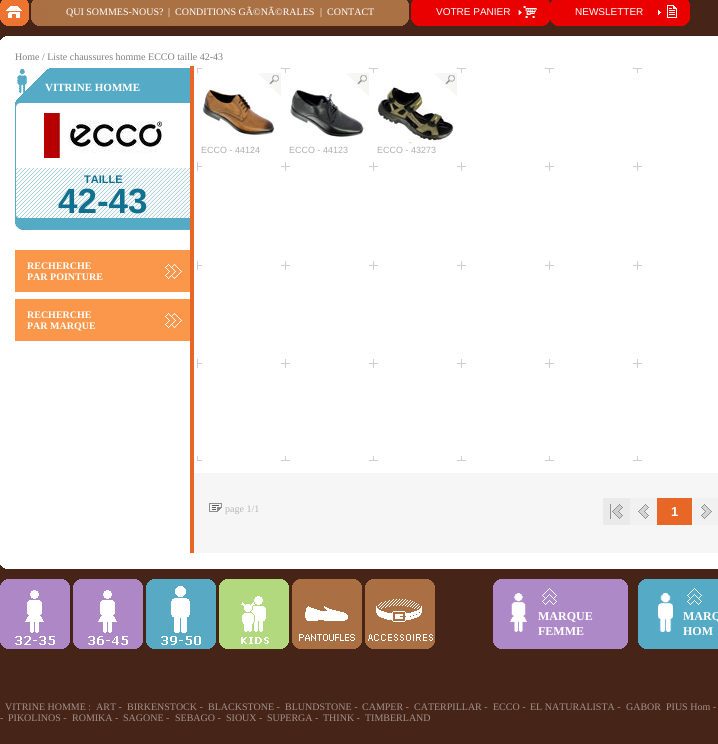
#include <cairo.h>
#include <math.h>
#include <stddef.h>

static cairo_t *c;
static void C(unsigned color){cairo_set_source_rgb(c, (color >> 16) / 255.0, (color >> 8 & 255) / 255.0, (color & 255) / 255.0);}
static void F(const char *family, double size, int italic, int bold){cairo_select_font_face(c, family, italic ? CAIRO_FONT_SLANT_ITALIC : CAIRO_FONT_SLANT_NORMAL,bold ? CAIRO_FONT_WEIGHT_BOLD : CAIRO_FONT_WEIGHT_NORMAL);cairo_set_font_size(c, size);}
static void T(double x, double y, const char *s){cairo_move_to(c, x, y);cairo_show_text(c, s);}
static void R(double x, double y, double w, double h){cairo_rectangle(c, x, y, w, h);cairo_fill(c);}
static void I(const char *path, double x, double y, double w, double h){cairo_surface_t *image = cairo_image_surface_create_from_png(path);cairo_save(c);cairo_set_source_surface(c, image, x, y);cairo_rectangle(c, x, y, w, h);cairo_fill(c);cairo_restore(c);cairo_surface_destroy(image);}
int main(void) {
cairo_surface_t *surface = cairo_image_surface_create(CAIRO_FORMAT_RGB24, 718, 744);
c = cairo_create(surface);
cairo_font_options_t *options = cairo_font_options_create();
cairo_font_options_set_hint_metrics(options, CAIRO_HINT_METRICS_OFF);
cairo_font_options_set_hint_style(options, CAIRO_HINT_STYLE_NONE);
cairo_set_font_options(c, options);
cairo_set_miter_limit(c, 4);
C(0x462417);
cairo_paint(c);
I("1.png",0,0,29,26);
I("2.png",31,0,378,26);
F("Liberation Serif",10,0,0);
C(0xffffff);
T(66,15,"QUI SOMMES-NOUS?");
T(168,15,"|");
T(175,15,"CONDITIONS GÃ©NÃ©RALES");
T(320,15,"|");
T(327,15,"CONTACT");
I("3.png",411,0,139,26);
F("Liberation Sans",10,0,0);
T(436,15,"VOTRE PANIER");
I("4.png",550,0,140,26);
T(575,15,"NEWSLETTER");
R(0,36,718,517);
I("5.png",0,36,5,4);
F("Liberation Serif",10,0,0);
C(0x7f7f7f);
T(15,60,"Home / Liste chaussures homme ECCO taille 42-43");
C(0xe86727);
R(190,66,4,489);
C(0x55aac6);
R(15,68,175,156);
I("6.png",15,68,34,34);
F("Liberation Serif",11,0,1);
C(0xffffff);
T(45,91,"VITRINE HOMME");
R(16,103,174,65);
I("7.png",16,103,4,4);
I("8.png",44,113,118,45);
I("9.png",16,168,174,50);
F("Liberation Sans",11,0,1);
C(0x11708f);
T(84,183,"TAILLE");
F("Liberation Sans",35,0,1);
T(58,213,"42-43");
I("10.png",15,224,175,6);
C(0xfa974b);
R(15,250,175,42);
I("11.png",165,264,17,15);
F("Liberation Serif",10,0,1);
C(0xffffff);
T(27,269,"RECHERCHE");
T(27,280,"PAR POINTURE");
C(0xfa974b);
R(15,299,175,42);
I("11.png",165,313,17,15);
C(0xffffff);
T(27,318,"RECHERCHE");
T(27,329,"PAR MARQUE");
I("12.png",197,68,445,393);
I("14.png",199,89,79,48);
I("13.png",259,73,22,23);
F("Liberation Sans",9,0,0);
C(0xadadad);
T(201,153,"ECCO - 44124");
I("15.png",289,89,78,48);
I("13.png",347,73,22,23);
T(289,153,"ECCO - 44123");
I("16.png",375,82,79,63);
I("13.png",435,73,22,23);
T(377,153,"ECCO - 43273");
C(0xf7f6f6);
R(194,473,524,80);
I("17.png",209,503,13,9);
F("Liberation Serif",10,0,0);
C(0xb6b5b5);
T(225,512,"page 1/1");
C(0xebeaea);
R(603,498,27,27);
I("18.png",610,504,13,15);
C(0xf2f1f1);
R(630,498,27,27);
I("19.png",638,504,11,15);
C(0xe86727);
R(657,498,35,27);
F("Liberation Sans",13,0,1);
C(0xffffff);
T(671,516,"1");
C(0xf2f1f1);
R(693,498,25,27);
I("20.png",701,504,11,15);
C(0xffffff);
R(0,553,718,16);
I("21.png",0,565,5,4);
I("22.png",0,579,70,70);
I("23.png",73,579,70,70);
I("24.png",146,579,70,70);
I("25.png",219,579,70,70);
I("26.png",292,579,70,70);
I("27.png",365,579,70,70);
I("28.png",493,579,135,70);
F("Liberation Serif",12,0,1);
T(538,620,"MARQUE");
T(538,635,"FEMME");
I("29.png",638,579,80,70);
T(683,620,"MARQ");
T(683,635,"HOM");
F("Liberation Serif",10,0,0);
C(0xa3918b);
T(5,710,"VITRINE HOMME :");
T(96,710,"ART -");
T(127,710,"BIRKENSTOCK -");
T(208,710,"BLACKSTONE -");
T(285,710,"BLUNDSTONE -");
T(362,710,"CAMPER -");
T(414,710,"CATERPILLAR -");
T(493,710,"ECCO -");
T(530,710,"EL NATURALISTA -");
T(626,710,"GABOR  PIUS Hom -");
T(0,721,"-");
T(8,721,"PIKOLINOS -");
T(72,721,"ROMIKA -");
T(123,721,"SAGONE -");
T(175,721,"SEBAGO -");
T(226,721,"SIOUX -");
T(267,721,"SUPERGA -");
T(323,721,"THINK -");
T(365,721,"TIMBERLAND");
cairo_surface_write_to_png(surface, "o.png");
cairo_font_options_destroy(options);
cairo_destroy(c);
cairo_surface_destroy(surface);
return 0;
}
